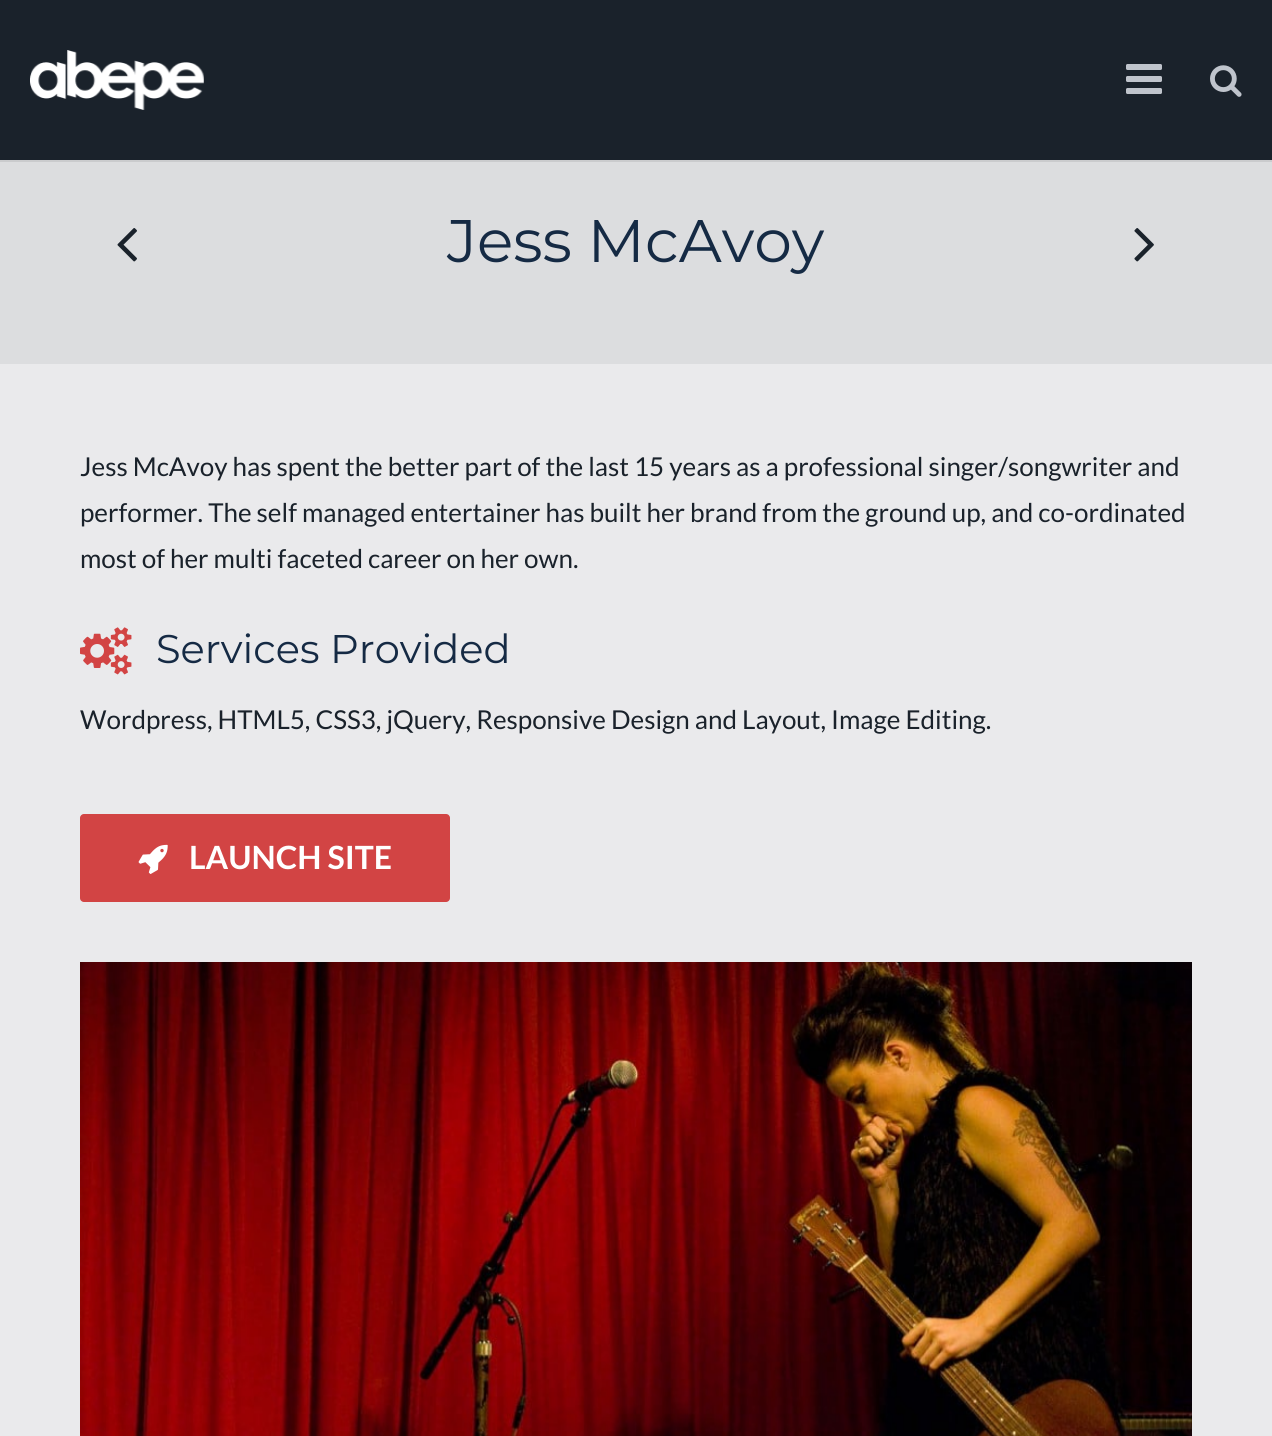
#include <cairo.h>
#include <math.h>
#include <stddef.h>

static cairo_t *c;
static void C(unsigned color){cairo_set_source_rgb(c, (color >> 16) / 255.0, (color >> 8 & 255) / 255.0, (color & 255) / 255.0);}
static void F(const char *family, double size, int italic, int bold){cairo_select_font_face(c, family, italic ? CAIRO_FONT_SLANT_ITALIC : CAIRO_FONT_SLANT_NORMAL,bold ? CAIRO_FONT_WEIGHT_BOLD : CAIRO_FONT_WEIGHT_NORMAL);cairo_set_font_size(c, size);}
static void T(double x, double y, const char *s){cairo_move_to(c, x, y);cairo_show_text(c, s);}
static void R(double x, double y, double w, double h){cairo_rectangle(c, x, y, w, h);cairo_fill(c);}
static void Q(double x, double y, double w, double h, double r){cairo_new_sub_path(c);cairo_arc(c, x + w - r, y + h - r, r, 0, M_PI / 2);cairo_arc(c, x + r, y + h - r, r, M_PI / 2, M_PI);cairo_arc(c, x + r, y + r, r, M_PI, 1.5 * M_PI);cairo_arc(c, x + w - r, y + r, r, 1.5 * M_PI, 2 * M_PI);cairo_close_path(c);}
static void I(const char *path, double x, double y, double w, double h){cairo_surface_t *image = cairo_image_surface_create_from_png(path);cairo_save(c);cairo_set_source_surface(c, image, x, y);cairo_rectangle(c, x, y, w, h);cairo_fill(c);cairo_restore(c);cairo_surface_destroy(image);}
int main(void) {
cairo_surface_t *surface = cairo_image_surface_create(CAIRO_FORMAT_RGB24, 1272, 1436);
c = cairo_create(surface);
cairo_font_options_t *options = cairo_font_options_create();
cairo_font_options_set_hint_metrics(options, CAIRO_HINT_METRICS_OFF);
cairo_font_options_set_hint_style(options, CAIRO_HINT_STYLE_NONE);
cairo_set_font_options(c, options);
cairo_set_miter_limit(c, 4);
C(0xeaeaec);
cairo_paint(c);
C(0xcacbcd);
R(0,160,1272,2);
C(0x1a222b);
R(0,0,1272,160);
I("1.png",30,50,174,60);
I("2.png",1126,64,36,30);
I("3.png",1210,65,32,32);
C(0xdcdddf);
R(0,162,1272,202);
F("Montserrat",60,0,0);
C(0x152a44);
T(447,262,"Jess McAvoy");
I("4.png",117,228,20,34);
I("5.png",1134,228,20,34);
F("Lato",26,0,0);
C(0x1a222b);
T(80,476,"Jess McAvoy has spent the better part of the last 15 years as a professional singer/songwriter and");
T(80,522,"performer. The self managed entertainer has built her brand from the ground up, and co-ordinated");
T(80,568,"most of her multi faceted career on her own.");
I("6.png",80,627,52,48);
F("Montserrat",40,0,0);
C(0x152a44);
T(156,663,"Services Provided");
F("Lato",26,0,0);
C(0x1a222b);
T(80,729,"Wordpress, HTML5, CSS3, jQuery, Responsive Design and Layout, Image Editing.");
C(0xd24444);
Q(80,814,370,88,4);
cairo_fill(c);
I("7.png",138,844,30,30);
F("Lato",32,0,1);
C(0xffffff);
T(189,869,"LAUNCH SITE");
I("8.png",80,962,1112,474);
cairo_surface_write_to_png(surface, "o.png");
cairo_font_options_destroy(options);
cairo_destroy(c);
cairo_surface_destroy(surface);
return 0;
}
